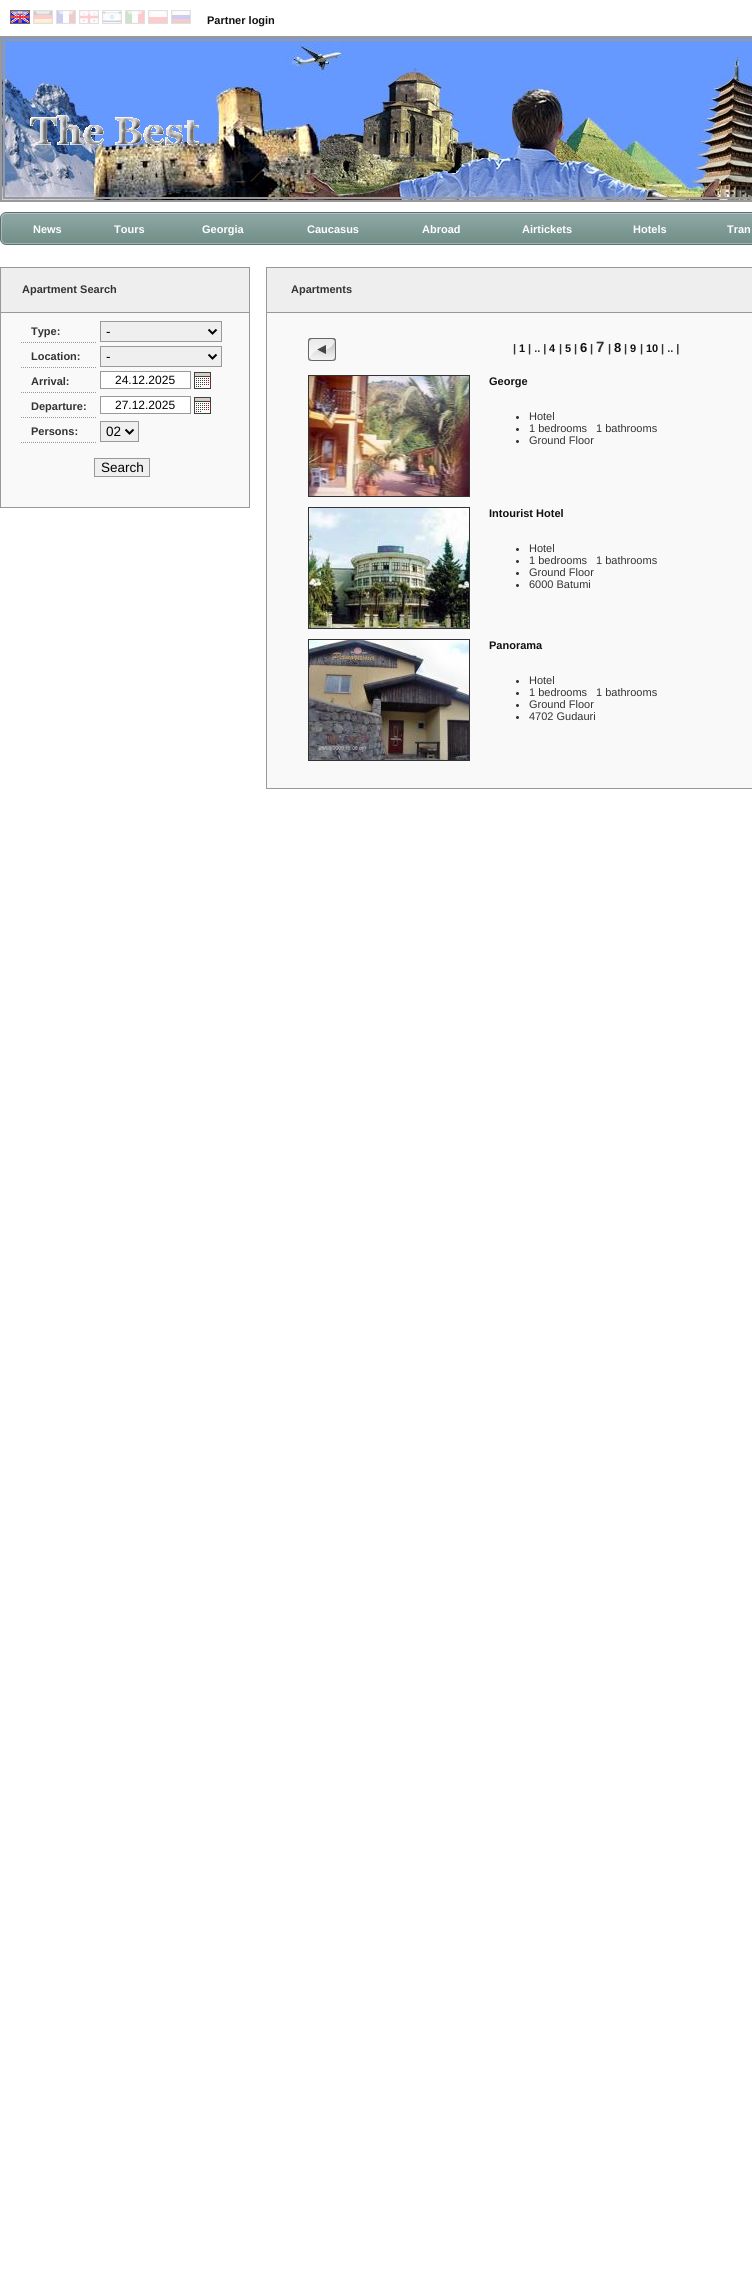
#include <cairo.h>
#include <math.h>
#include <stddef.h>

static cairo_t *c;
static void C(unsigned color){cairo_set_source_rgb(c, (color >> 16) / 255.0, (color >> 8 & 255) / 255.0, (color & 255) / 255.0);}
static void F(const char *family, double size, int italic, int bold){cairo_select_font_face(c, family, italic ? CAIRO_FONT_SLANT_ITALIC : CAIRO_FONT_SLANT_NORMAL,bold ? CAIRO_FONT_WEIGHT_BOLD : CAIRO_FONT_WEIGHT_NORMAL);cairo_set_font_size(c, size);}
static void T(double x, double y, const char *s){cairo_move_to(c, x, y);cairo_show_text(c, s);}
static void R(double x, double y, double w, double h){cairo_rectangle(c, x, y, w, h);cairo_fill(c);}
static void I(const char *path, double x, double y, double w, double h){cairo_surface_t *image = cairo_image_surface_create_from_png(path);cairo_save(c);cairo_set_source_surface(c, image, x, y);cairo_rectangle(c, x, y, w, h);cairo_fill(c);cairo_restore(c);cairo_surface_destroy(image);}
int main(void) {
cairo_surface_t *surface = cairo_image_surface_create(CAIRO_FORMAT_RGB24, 752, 2280);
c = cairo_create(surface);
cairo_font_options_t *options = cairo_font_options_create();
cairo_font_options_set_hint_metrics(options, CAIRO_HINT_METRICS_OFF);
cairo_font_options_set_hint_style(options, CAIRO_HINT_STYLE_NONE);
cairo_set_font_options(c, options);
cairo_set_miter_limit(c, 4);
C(0xffffff);
cairo_paint(c);
cairo_rectangle(c,10.5,10.5,19,13);
C(0x666666);
cairo_set_line_width(c,1);
cairo_stroke(c);
cairo_rectangle(c,33.5,10.5,19,13);
C(0xe0e0e0);
cairo_stroke(c);
cairo_rectangle(c,56.5,10.5,19,13);
cairo_stroke(c);
cairo_rectangle(c,79.5,10.5,19,13);
cairo_stroke(c);
cairo_rectangle(c,102.5,10.5,19,13);
cairo_stroke(c);
cairo_rectangle(c,125.5,10.5,19,13);
cairo_stroke(c);
cairo_rectangle(c,148.5,10.5,19,13);
cairo_stroke(c);
cairo_rectangle(c,171.5,10.5,19,13);
cairo_stroke(c);
I("1.png",11,11,18,12);
I("2.png",34,11,18,12);
I("3.png",57,11,18,12);
I("4.png",80,11,18,12);
I("5.png",103,11,18,12);
I("6.png",126,11,18,12);
I("7.png",149,11,18,12);
I("8.png",172,11,18,12);
F("Liberation Sans",11,0,1);
C(0x111111);
T(207,24,"Partner login");
I("9.png",2,38,750,162);
cairo_rectangle(c,1,37,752,164);
C(0x999999);
cairo_set_line_width(c,2);
cairo_stroke(c);
cairo_rectangle(c,4,40,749,158);
cairo_stroke(c);
I("10.png",30,115,169,30);
I("11.png",0,212,7,33);
I("12.png",7,212,81,33);
C(0xffffff);
T(33,233,"News");
I("13.png",88,212,83,33);
T(114,233,"Tours");
I("14.png",171,212,102,33);
T(202,233,"Georgia");
I("15.png",273,212,119,33);
T(307,233,"Caucasus");
I("16.png",392,212,97,33);
T(422,233,"Abroad");
I("17.png",489,212,116,33);
T(522,233,"Airtickets");
I("18.png",605,212,89,33);
T(633,233,"Hotels");
I("19.png",694,212,58,33);
T(727,233,"Tran");
C(0xeeeeee);
R(1,268,248,44);
C(0x999999);
R(0,267,250,1);
R(249,312,1,196);
R(249,267,1,46);
R(0,507,250,1);
R(0,312,1,196);
R(0,312,250,1);
R(0,267,1,46);
C(0x333333);
T(22,293,"Apartment Search");
C(0xf9f9f9);
R(1,485,248,22);
R(1,313,248,172);
cairo_new_path(c);
cairo_move_to(c,21,342.5);
cairo_line_to(c,97,342.5);
C(0x999999);
cairo_set_line_width(c,1);
cairo_set_dash(c,(double[]){1,1},2,0);
cairo_stroke(c);
C(0x333333);
T(31,335,"Type:");
C(0xefefef);
cairo_rectangle(c,100.5,321.5,121,20);
cairo_fill_preserve(c);
C(0x999999);
cairo_set_dash(c,NULL,0,0);
cairo_stroke(c);
cairo_new_path(c);
cairo_move_to(c,208.5,329.5);
cairo_line_to(c,212.5,333.5);
cairo_line_to(c,216.5,329.5);
C(0x000000);
cairo_set_line_width(c,2);
cairo_stroke(c);
F("Liberation Sans",13.5,0,0);
T(106,336,"-");
cairo_new_path(c);
cairo_move_to(c,21,367.5);
cairo_line_to(c,97,367.5);
C(0x999999);
cairo_set_line_width(c,1);
cairo_set_dash(c,(double[]){1,1},2,0);
cairo_stroke(c);
F("Liberation Sans",11,0,1);
C(0x333333);
T(31,360,"Location:");
C(0xefefef);
cairo_rectangle(c,100.5,346.5,121,20);
cairo_fill_preserve(c);
C(0x999999);
cairo_set_dash(c,NULL,0,0);
cairo_stroke(c);
cairo_new_path(c);
cairo_move_to(c,208.5,354.5);
cairo_line_to(c,212.5,358.5);
cairo_line_to(c,216.5,354.5);
C(0x000000);
cairo_set_line_width(c,2);
cairo_stroke(c);
F("Liberation Sans",13.5,0,0);
T(106,361,"-");
cairo_new_path(c);
cairo_move_to(c,21,392.5);
cairo_line_to(c,97,392.5);
C(0x999999);
cairo_set_line_width(c,1);
cairo_set_dash(c,(double[]){1,1},2,0);
cairo_stroke(c);
F("Liberation Sans",11,0,1);
C(0x333333);
T(31,385,"Arrival:");
C(0xffffff);
cairo_rectangle(c,100.5,371.5,90,17);
cairo_fill_preserve(c);
C(0x999999);
cairo_set_dash(c,NULL,0,0);
cairo_stroke(c);
F("Liberation Sans",12,0,0);
C(0x000000);
T(115,384,"24.12.2025");
I("20.png",194,372,17,17);
cairo_new_path(c);
cairo_move_to(c,21,417.5);
cairo_line_to(c,97,417.5);
C(0x999999);
cairo_set_dash(c,(double[]){1,1},2,0);
cairo_stroke(c);
F("Liberation Sans",11,0,1);
C(0x333333);
T(31,410,"Departure:");
C(0xffffff);
cairo_rectangle(c,100.5,396.5,90,17);
cairo_fill_preserve(c);
C(0x999999);
cairo_set_dash(c,NULL,0,0);
cairo_stroke(c);
F("Liberation Sans",12,0,0);
C(0x000000);
T(115,409,"27.12.2025");
I("20.png",194,397,17,17);
cairo_new_path(c);
cairo_move_to(c,21,442.5);
cairo_line_to(c,97,442.5);
C(0x999999);
cairo_set_dash(c,(double[]){1,1},2,0);
cairo_stroke(c);
F("Liberation Sans",11,0,1);
C(0x333333);
T(31,435,"Persons:");
C(0xefefef);
cairo_rectangle(c,100.5,421.5,38,20);
cairo_fill_preserve(c);
C(0x999999);
cairo_set_dash(c,NULL,0,0);
cairo_stroke(c);
cairo_new_path(c);
cairo_move_to(c,125.5,429.5);
cairo_line_to(c,129.5,433.5);
cairo_line_to(c,133.5,429.5);
C(0x000000);
cairo_set_line_width(c,2);
cairo_stroke(c);
F("Liberation Sans",13.5,0,0);
T(106,436,"02");
C(0xefefef);
cairo_rectangle(c,94.5,458.5,55,18);
cairo_fill_preserve(c);
C(0x999999);
cairo_set_line_width(c,1);
cairo_stroke(c);
C(0x000000);
T(101,472,"Search");
C(0xeeeeee);
R(267,268,485,44);
C(0x999999);
R(266,267,486,1);
R(266,788,486,1);
R(266,312,1,477);
R(266,312,486,1);
R(266,267,1,46);
F("Liberation Sans",11,0,1);
C(0x333333);
T(291,293,"Apartments");
C(0xf9f9f9);
R(267,766,485,22);
R(267,313,485,453);
I("21.png",308,338,28,23);
C(0x333333);
T(513,352,"|");
C(0x111111);
T(519,352,"1");
C(0x333333);
T(528,352,"| .. |");
C(0x111111);
T(549,352,"4");
C(0x333333);
T(559,352,"|");
C(0x111111);
T(565,352,"5");
C(0x333333);
T(574,352,"|");
F("Liberation Sans",13,0,1);
C(0x111111);
T(580,352,"6");
F("Liberation Sans",11,0,1);
C(0x333333);
T(590,352,"|");
F("Liberation Sans",15,0,1);
T(596,352,"7");
F("Liberation Sans",11,0,1);
T(608,352,"|");
F("Liberation Sans",13,0,1);
C(0x111111);
T(614,352,"8");
F("Liberation Sans",11,0,1);
C(0x333333);
T(624,352,"|");
C(0x111111);
T(630,352,"9");
C(0x333333);
T(640,352,"|");
C(0x111111);
T(646,352,"10");
C(0x333333);
T(661,352,"| .. |");
I("22.png",309,376,160,120);
cairo_rectangle(c,308.5,375.5,161,121);
cairo_stroke(c);
C(0x111111);
T(489,385,"George");
C(0x333333);
cairo_new_path(c);
cairo_arc(c,517.5,417.5,1.5,0,2 * M_PI);
cairo_fill(c);
F("Liberation Sans",11,0,0);
T(529,420,"Hotel");
cairo_new_path(c);
cairo_arc(c,517.5,429.5,1.5,0,2 * M_PI);
cairo_fill(c);
T(529,432,"1 bedrooms");
T(596,432,"1 bathrooms");
cairo_new_path(c);
cairo_arc(c,517.5,441.5,1.5,0,2 * M_PI);
cairo_fill(c);
T(529,444,"Ground Floor");
I("23.png",309,508,160,120);
cairo_rectangle(c,308.5,507.5,161,121);
cairo_stroke(c);
F("Liberation Sans",11,0,1);
C(0x111111);
T(489,517,"Intourist Hotel");
C(0x333333);
cairo_new_path(c);
cairo_arc(c,517.5,549.5,1.5,0,2 * M_PI);
cairo_fill(c);
F("Liberation Sans",11,0,0);
T(529,552,"Hotel");
cairo_new_path(c);
cairo_arc(c,517.5,561.5,1.5,0,2 * M_PI);
cairo_fill(c);
T(529,564,"1 bedrooms");
T(596,564,"1 bathrooms");
cairo_new_path(c);
cairo_arc(c,517.5,573.5,1.5,0,2 * M_PI);
cairo_fill(c);
T(529,576,"Ground Floor");
cairo_new_path(c);
cairo_arc(c,517.5,585.5,1.5,0,2 * M_PI);
cairo_fill(c);
T(529,588,"6000 Batumi");
I("24.png",309,640,160,120);
cairo_rectangle(c,308.5,639.5,161,121);
cairo_stroke(c);
F("Liberation Sans",11,0,1);
C(0x111111);
T(489,649,"Panorama");
C(0x333333);
cairo_new_path(c);
cairo_arc(c,517.5,681.5,1.5,0,2 * M_PI);
cairo_fill(c);
F("Liberation Sans",11,0,0);
T(529,684,"Hotel");
cairo_new_path(c);
cairo_arc(c,517.5,693.5,1.5,0,2 * M_PI);
cairo_fill(c);
T(529,696,"1 bedrooms");
T(596,696,"1 bathrooms");
cairo_new_path(c);
cairo_arc(c,517.5,705.5,1.5,0,2 * M_PI);
cairo_fill(c);
T(529,708,"Ground Floor");
cairo_new_path(c);
cairo_arc(c,517.5,717.5,1.5,0,2 * M_PI);
cairo_fill(c);
T(529,720,"4702 Gudauri");
cairo_surface_write_to_png(surface, "o.png");
cairo_font_options_destroy(options);
cairo_destroy(c);
cairo_surface_destroy(surface);
return 0;
}
